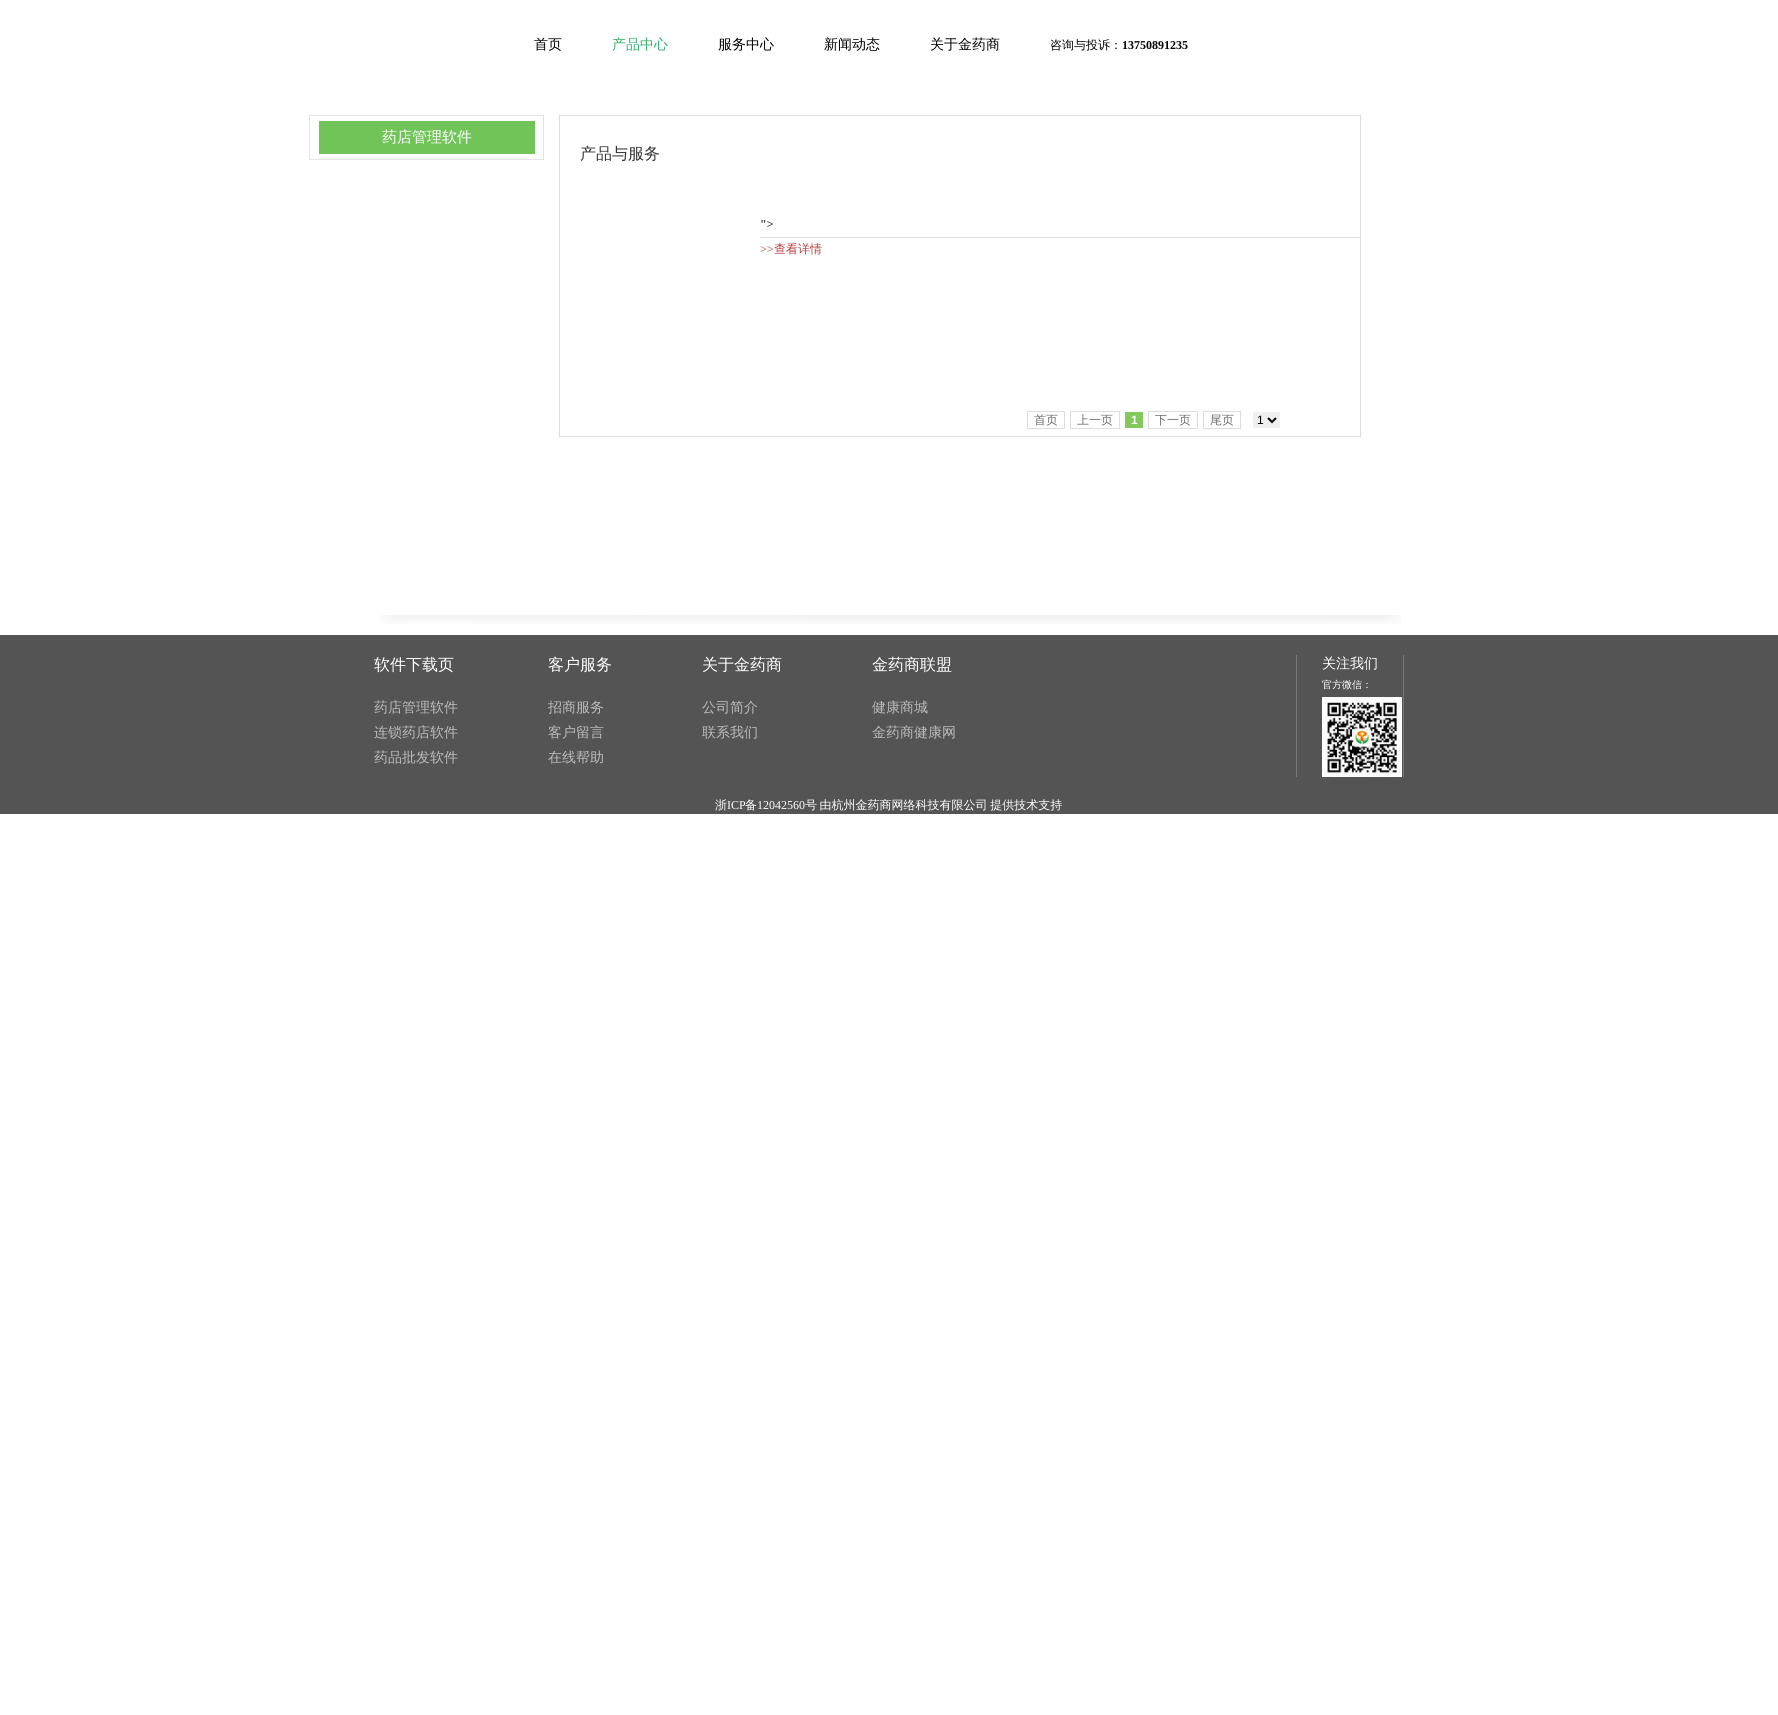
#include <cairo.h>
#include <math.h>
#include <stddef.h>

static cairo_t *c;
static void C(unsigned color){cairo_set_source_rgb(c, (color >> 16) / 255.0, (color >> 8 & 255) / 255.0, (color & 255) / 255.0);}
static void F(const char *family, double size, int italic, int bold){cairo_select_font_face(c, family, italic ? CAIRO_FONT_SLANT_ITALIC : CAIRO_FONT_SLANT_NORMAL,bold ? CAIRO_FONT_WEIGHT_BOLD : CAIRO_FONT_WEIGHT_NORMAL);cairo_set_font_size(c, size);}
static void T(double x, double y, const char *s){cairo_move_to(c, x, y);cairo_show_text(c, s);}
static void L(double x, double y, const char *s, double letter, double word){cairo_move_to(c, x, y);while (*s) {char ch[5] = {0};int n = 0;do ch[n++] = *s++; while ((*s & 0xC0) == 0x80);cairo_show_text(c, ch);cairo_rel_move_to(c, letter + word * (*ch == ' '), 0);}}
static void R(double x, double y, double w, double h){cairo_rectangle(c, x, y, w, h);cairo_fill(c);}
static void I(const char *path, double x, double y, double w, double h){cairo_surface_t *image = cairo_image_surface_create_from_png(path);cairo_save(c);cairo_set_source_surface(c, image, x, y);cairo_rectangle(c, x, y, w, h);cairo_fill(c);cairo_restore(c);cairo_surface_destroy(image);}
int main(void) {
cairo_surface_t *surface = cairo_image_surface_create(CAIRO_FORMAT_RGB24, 1778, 1715);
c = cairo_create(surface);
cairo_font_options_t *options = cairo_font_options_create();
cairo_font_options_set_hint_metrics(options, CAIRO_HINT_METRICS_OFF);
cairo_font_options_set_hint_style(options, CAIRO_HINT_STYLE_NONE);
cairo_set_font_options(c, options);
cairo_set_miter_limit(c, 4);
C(0xffffff);
cairo_paint(c);
F("WenQuanYi Zen Hei Medium",14,0,0);
C(0x000000);
T(534,49,"首页");
C(0x32b16c);
T(612,49,"产品中心");
C(0x000000);
T(718,49,"服务中心");
T(824,49,"新闻动态");
T(930,49,"关于金药商");
F("WenQuanYi Zen Hei Medium",12,0,0);
T(1050,49,"咨询与投诉：");
F("Liberation Serif",12,0,1);
T(1122,49,"13750891235");
cairo_rectangle(c,309.5,115.5,234,44);
C(0xe4e4e4);
cairo_set_line_width(c,1);
cairo_stroke(c);
C(0x71c558);
R(319,121,216,33);
F("WenQuanYi Zen Hei Medium",15,0,0);
C(0xffffff);
T(382,142,"药店管理软件");
cairo_rectangle(c,559.5,115.5,801,321);
C(0xdddddd);
cairo_stroke(c);
F("WenQuanYi Zen Hei Medium",16,0,0);
C(0x333333);
T(580,159,"产品与服务");
C(0xdddddd);
R(760,237,600,1);
F("Liberation Serif",12,0,1);
C(0x333333);
T(760,228,"\">");
F("Liberation Serif",12,0,0);
C(0xb93d3d);
T(760,253,">>");
F("WenQuanYi Zen Hei Medium",12,0,0);
T(774,253,"查看详情");
cairo_rectangle(c,1027.5,411.5,37,17);
C(0xdddddd);
cairo_stroke(c);
C(0x6d6d6d);
T(1034,424,"首页");
cairo_rectangle(c,1070.5,411.5,49,17);
C(0xdddddd);
cairo_stroke(c);
C(0x6d6d6d);
T(1077,424,"上一页");
C(0x81c95b);
R(1125,412,18,16);
F("Liberation Sans",12,0,1);
C(0xffffff);
T(1131,424,"1");
cairo_rectangle(c,1148.5,411.5,49,17);
C(0xdddddd);
cairo_stroke(c);
F("WenQuanYi Zen Hei Medium",12,0,0);
C(0x6d6d6d);
T(1155,424,"下一页");
cairo_rectangle(c,1203.5,411.5,37,17);
C(0xdddddd);
cairo_stroke(c);
C(0x6d6d6d);
T(1210,424,"尾页");
C(0xefefef);
R(1253,412,27,16);
cairo_new_path(c);
cairo_move_to(c,1268,418);
cairo_line_to(c,1272,422);
cairo_line_to(c,1276,418);
C(0x000000);
cairo_set_line_width(c,2);
cairo_stroke(c);
F("Liberation Sans",12,0,0);
T(1257,424,"1");
I("1.png",379,615,1022,9);
C(0x545454);
R(0,635,1778,179);
F("WenQuanYi Zen Hei Medium",16,0,0);
C(0xffffff);
T(374,670,"软件下载页");
F("WenQuanYi Zen Hei Medium",14,0,0);
C(0xbbbbbb);
T(374,712,"药店管理软件");
T(374,737,"连锁药店软件");
T(374,762,"药品批发软件");
F("WenQuanYi Zen Hei Medium",16,0,0);
C(0xffffff);
T(548,670,"客户服务");
F("WenQuanYi Zen Hei Medium",14,0,0);
C(0xbbbbbb);
T(548,712,"招商服务");
T(548,737,"客户留言");
T(548,762,"在线帮助");
F("WenQuanYi Zen Hei Medium",16,0,0);
C(0xffffff);
T(702,670,"关于金药商");
F("WenQuanYi Zen Hei Medium",14,0,0);
C(0xbbbbbb);
T(702,712,"公司简介");
T(702,737,"联系我们");
F("WenQuanYi Zen Hei Medium",16,0,0);
C(0xffffff);
T(872,670,"金药商联盟");
F("WenQuanYi Zen Hei Medium",14,0,0);
C(0xbbbbbb);
T(872,712,"健康商城");
T(872,737,"金药商健康网");
C(0x797979);
R(1403,655,1,122);
R(1296,655,1,122);
C(0xffffff);
T(1322,668,"关注我们");
F("WenQuanYi Zen Hei Medium",10,0,0);
T(1322,688,"官方微信：");
I("2.png",1322,697,80,80);
F("WenQuanYi Zen Hei Medium",12,0,0);
T(715,809,"浙");
F("Liberation Serif",12,0,0);
T(727,809,"ICP");
F("WenQuanYi Zen Hei Medium",12,0,0);
T(745,809,"备");
F("Liberation Serif",12,0,0);
T(757,809,"12042560");
F("WenQuanYi Zen Hei Medium",12,0,0);
L(805,809,"号 由杭州金药商网络科技有限公司 提供技术支持",0,-1);
cairo_surface_write_to_png(surface, "o.png");
cairo_font_options_destroy(options);
cairo_destroy(c);
cairo_surface_destroy(surface);
return 0;
}
